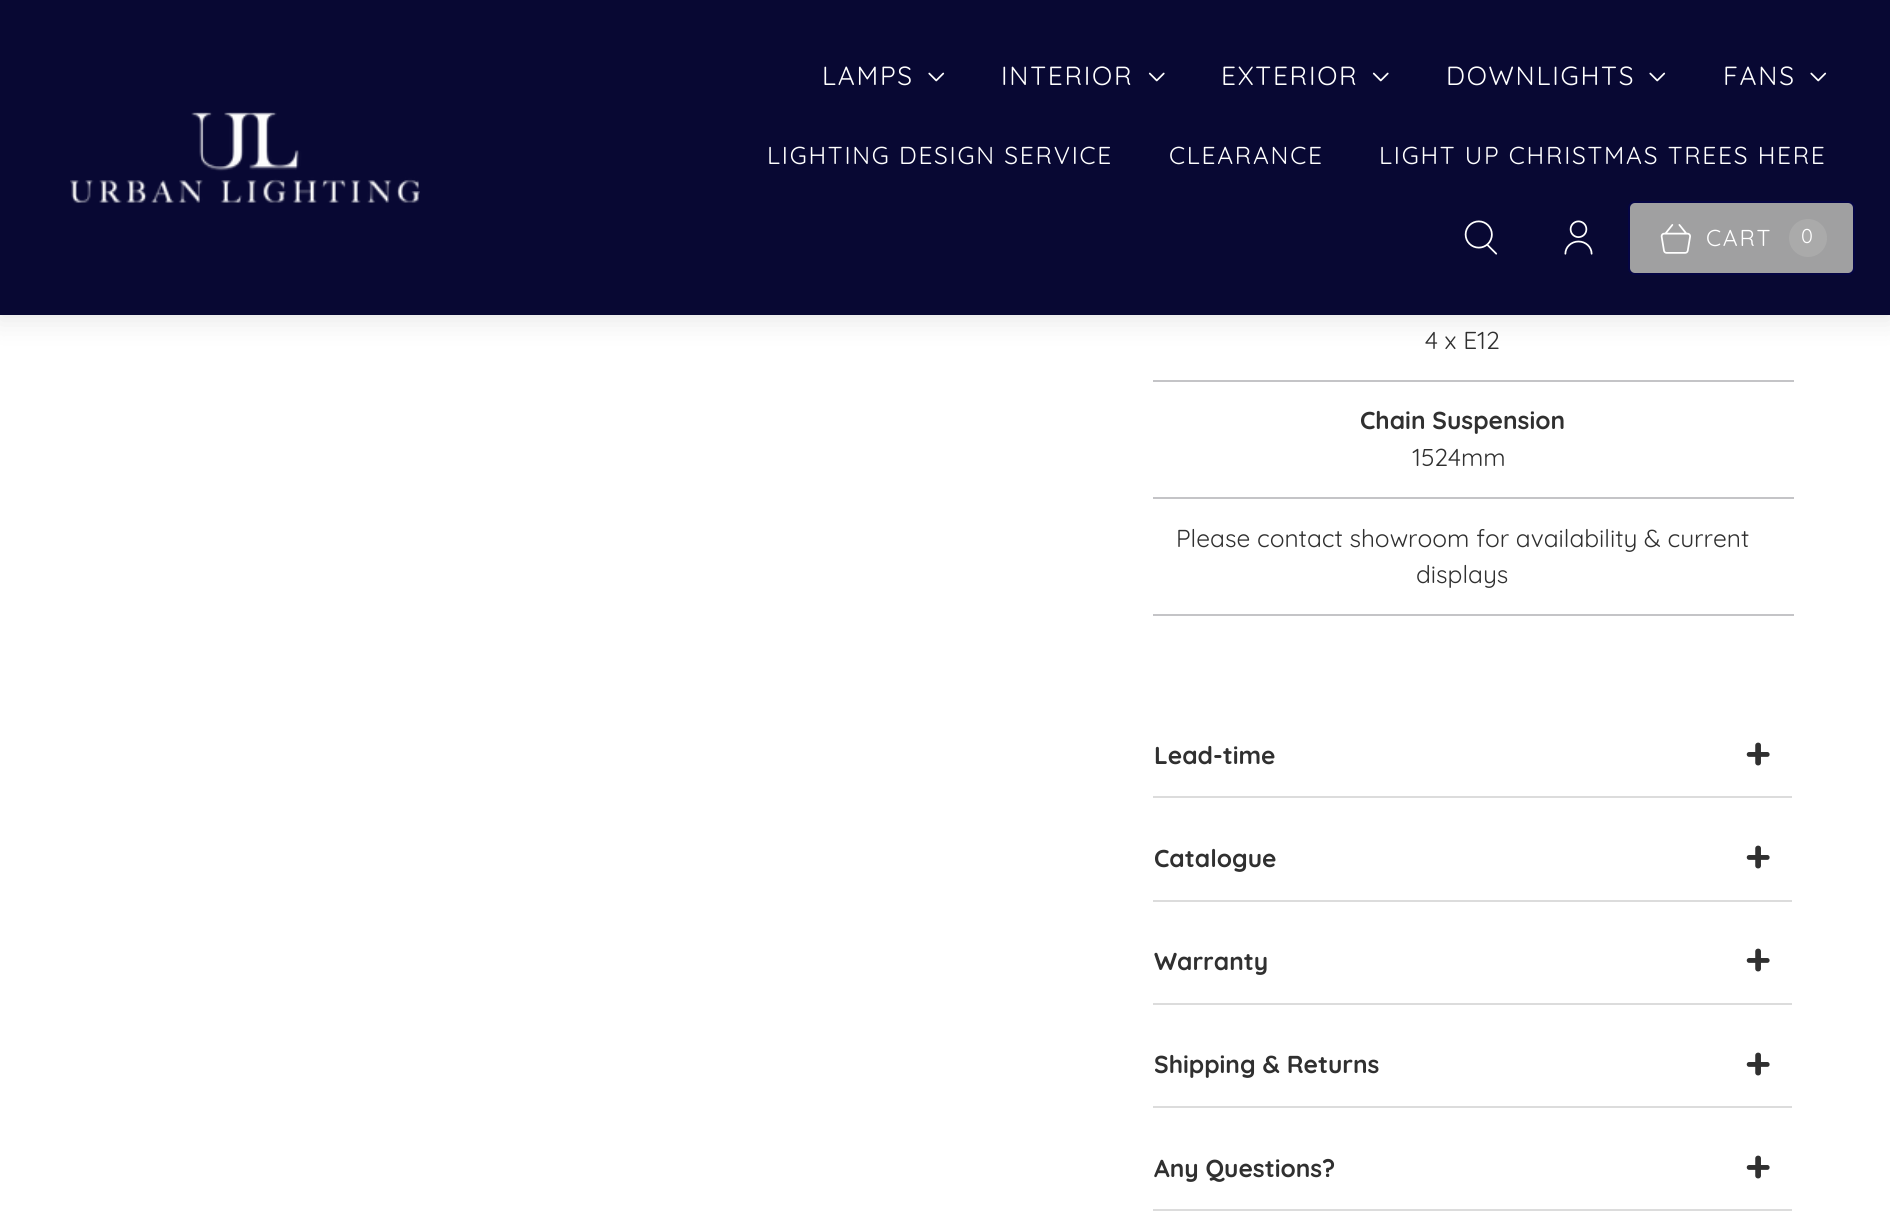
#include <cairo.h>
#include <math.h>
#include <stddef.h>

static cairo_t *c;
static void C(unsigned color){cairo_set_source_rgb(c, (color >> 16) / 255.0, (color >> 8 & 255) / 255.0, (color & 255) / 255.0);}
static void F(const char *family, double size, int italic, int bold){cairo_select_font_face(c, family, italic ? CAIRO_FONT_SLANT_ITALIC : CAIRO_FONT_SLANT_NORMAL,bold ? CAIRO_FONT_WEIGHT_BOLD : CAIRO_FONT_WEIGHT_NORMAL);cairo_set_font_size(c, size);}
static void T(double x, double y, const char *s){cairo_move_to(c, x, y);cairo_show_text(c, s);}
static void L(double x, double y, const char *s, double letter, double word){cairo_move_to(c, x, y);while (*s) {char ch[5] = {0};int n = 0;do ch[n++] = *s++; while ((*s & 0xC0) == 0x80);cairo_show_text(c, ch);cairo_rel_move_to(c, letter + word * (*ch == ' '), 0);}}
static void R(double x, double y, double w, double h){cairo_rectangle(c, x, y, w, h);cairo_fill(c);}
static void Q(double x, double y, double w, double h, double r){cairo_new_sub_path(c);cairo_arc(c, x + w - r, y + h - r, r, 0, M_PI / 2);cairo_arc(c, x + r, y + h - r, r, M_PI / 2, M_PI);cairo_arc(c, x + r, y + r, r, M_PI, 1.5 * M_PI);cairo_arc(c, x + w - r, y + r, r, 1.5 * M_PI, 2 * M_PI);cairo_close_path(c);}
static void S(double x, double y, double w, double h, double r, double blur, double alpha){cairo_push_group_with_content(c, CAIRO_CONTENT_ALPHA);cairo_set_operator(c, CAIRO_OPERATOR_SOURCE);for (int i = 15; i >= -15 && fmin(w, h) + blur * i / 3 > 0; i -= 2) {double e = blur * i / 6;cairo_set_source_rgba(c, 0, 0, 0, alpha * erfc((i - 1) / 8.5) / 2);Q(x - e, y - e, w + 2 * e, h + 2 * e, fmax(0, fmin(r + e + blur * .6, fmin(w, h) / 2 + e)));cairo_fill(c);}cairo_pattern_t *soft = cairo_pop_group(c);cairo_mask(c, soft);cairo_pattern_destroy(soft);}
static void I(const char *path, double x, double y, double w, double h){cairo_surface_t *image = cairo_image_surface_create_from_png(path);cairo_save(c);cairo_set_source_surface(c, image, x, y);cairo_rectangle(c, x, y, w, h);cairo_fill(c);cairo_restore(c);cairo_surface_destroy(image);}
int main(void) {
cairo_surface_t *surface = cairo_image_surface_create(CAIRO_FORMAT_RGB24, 1890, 1228);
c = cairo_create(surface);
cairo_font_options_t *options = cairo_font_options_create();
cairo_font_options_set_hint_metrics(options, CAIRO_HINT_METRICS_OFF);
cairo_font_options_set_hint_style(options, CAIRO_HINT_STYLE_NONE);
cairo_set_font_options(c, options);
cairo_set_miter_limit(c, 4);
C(0xffffff);
cairo_paint(c);
C(0x000000);
S(-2,-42,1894,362,0,14,.1);
C(0x080833);
R(0,0,1890,315);
I("1.png",70,112,350,91);
F("Quicksand",26.25,0,0);
C(0xffffff);
L(822,85,"LAMPS",1.75,0);
I("2.png",928,72,17,10);
L(1001,85,"INTERIOR",1.75,0);
I("3.png",1148,72,17,10);
L(1221,85,"EXTERIOR",1.75,0);
I("3.png",1372,72,17,10);
L(1446,85,"DOWNLIGHTS",1.75,0);
I("2.png",1649,72,17,10);
L(1723,85,"FANS",1.75,0);
I("2.png",1810,72,17,10);
F("Quicksand",24.5,0,0);
L(767,164,"LIGHTING DESIGN SERVICE",1.75,0);
L(1169,164,"CLEARANCE",1.75,0);
L(1379,164,"LIGHT UP CHRISTMAS TREES HERE",1.75,0);
I("4.png",1464,220,34,35);
I("5.png",1564,220,29,35);
C(0xa0a0a1);
Q(1629,202,225,72,6);
cairo_fill_preserve(c);
C(0x050544);
cairo_stroke(c);
I("6.png",1660,224,31,30);
F("Quicksand",23,0,0);
C(0xffffff);
L(1706,246,"CART",1.75,0);
C(0xaaaaaa);
cairo_new_path(c);
cairo_arc(c,1808,238,19,0,2 * M_PI);
cairo_fill(c);
F("Quicksand",20,0,0);
C(0xffffff);
L(1801,243,"0",1.75,0);
C(0xc4c4c7);
R(1153,380,641,2);
F("Quicksand",24.5,0,0);
C(0x303030);
T(1425,349,"4 x E12");
C(0xc4c4c7);
R(1153,497,641,2);
F("Quicksand",24.5,0,1);
C(0x303030);
T(1360,429,"Chain Suspension");
F("Quicksand",24.5,0,0);
T(1412,466,"1524mm");
C(0xc4c4c7);
R(1153,614,641,2);
C(0x303030);
T(1176,547,"Please contact showroom for availability & current");
T(1416,583,"displays");
C(0xdcdcdc);
R(1153,796,639,2);
F("Quicksand",24.5,0,1);
C(0x303030);
T(1154,764,"Lead-time");
F("Quicksand",44,0,1);
T(1745,769,"+");
C(0xdcdcdc);
R(1153,900,639,2);
F("Quicksand",24.5,0,1);
C(0x303030);
T(1154,867,"Catalogue");
F("Quicksand",44,0,1);
T(1745,872,"+");
C(0xdcdcdc);
R(1153,1003,639,2);
F("Quicksand",24.5,0,1);
C(0x303030);
T(1154,970,"Warranty");
F("Quicksand",44,0,1);
T(1745,975,"+");
C(0xdcdcdc);
R(1153,1106,639,2);
F("Quicksand",24.5,0,1);
C(0x303030);
T(1154,1073,"Shipping & Returns");
F("Quicksand",44,0,1);
T(1745,1079,"+");
C(0xdcdcdc);
R(1153,1209,639,2);
F("Quicksand",24.5,0,1);
C(0x303030);
T(1154,1177,"Any Questions?");
F("Quicksand",44,0,1);
T(1745,1182,"+");
cairo_surface_write_to_png(surface, "o.png");
cairo_font_options_destroy(options);
cairo_destroy(c);
cairo_surface_destroy(surface);
return 0;
}
